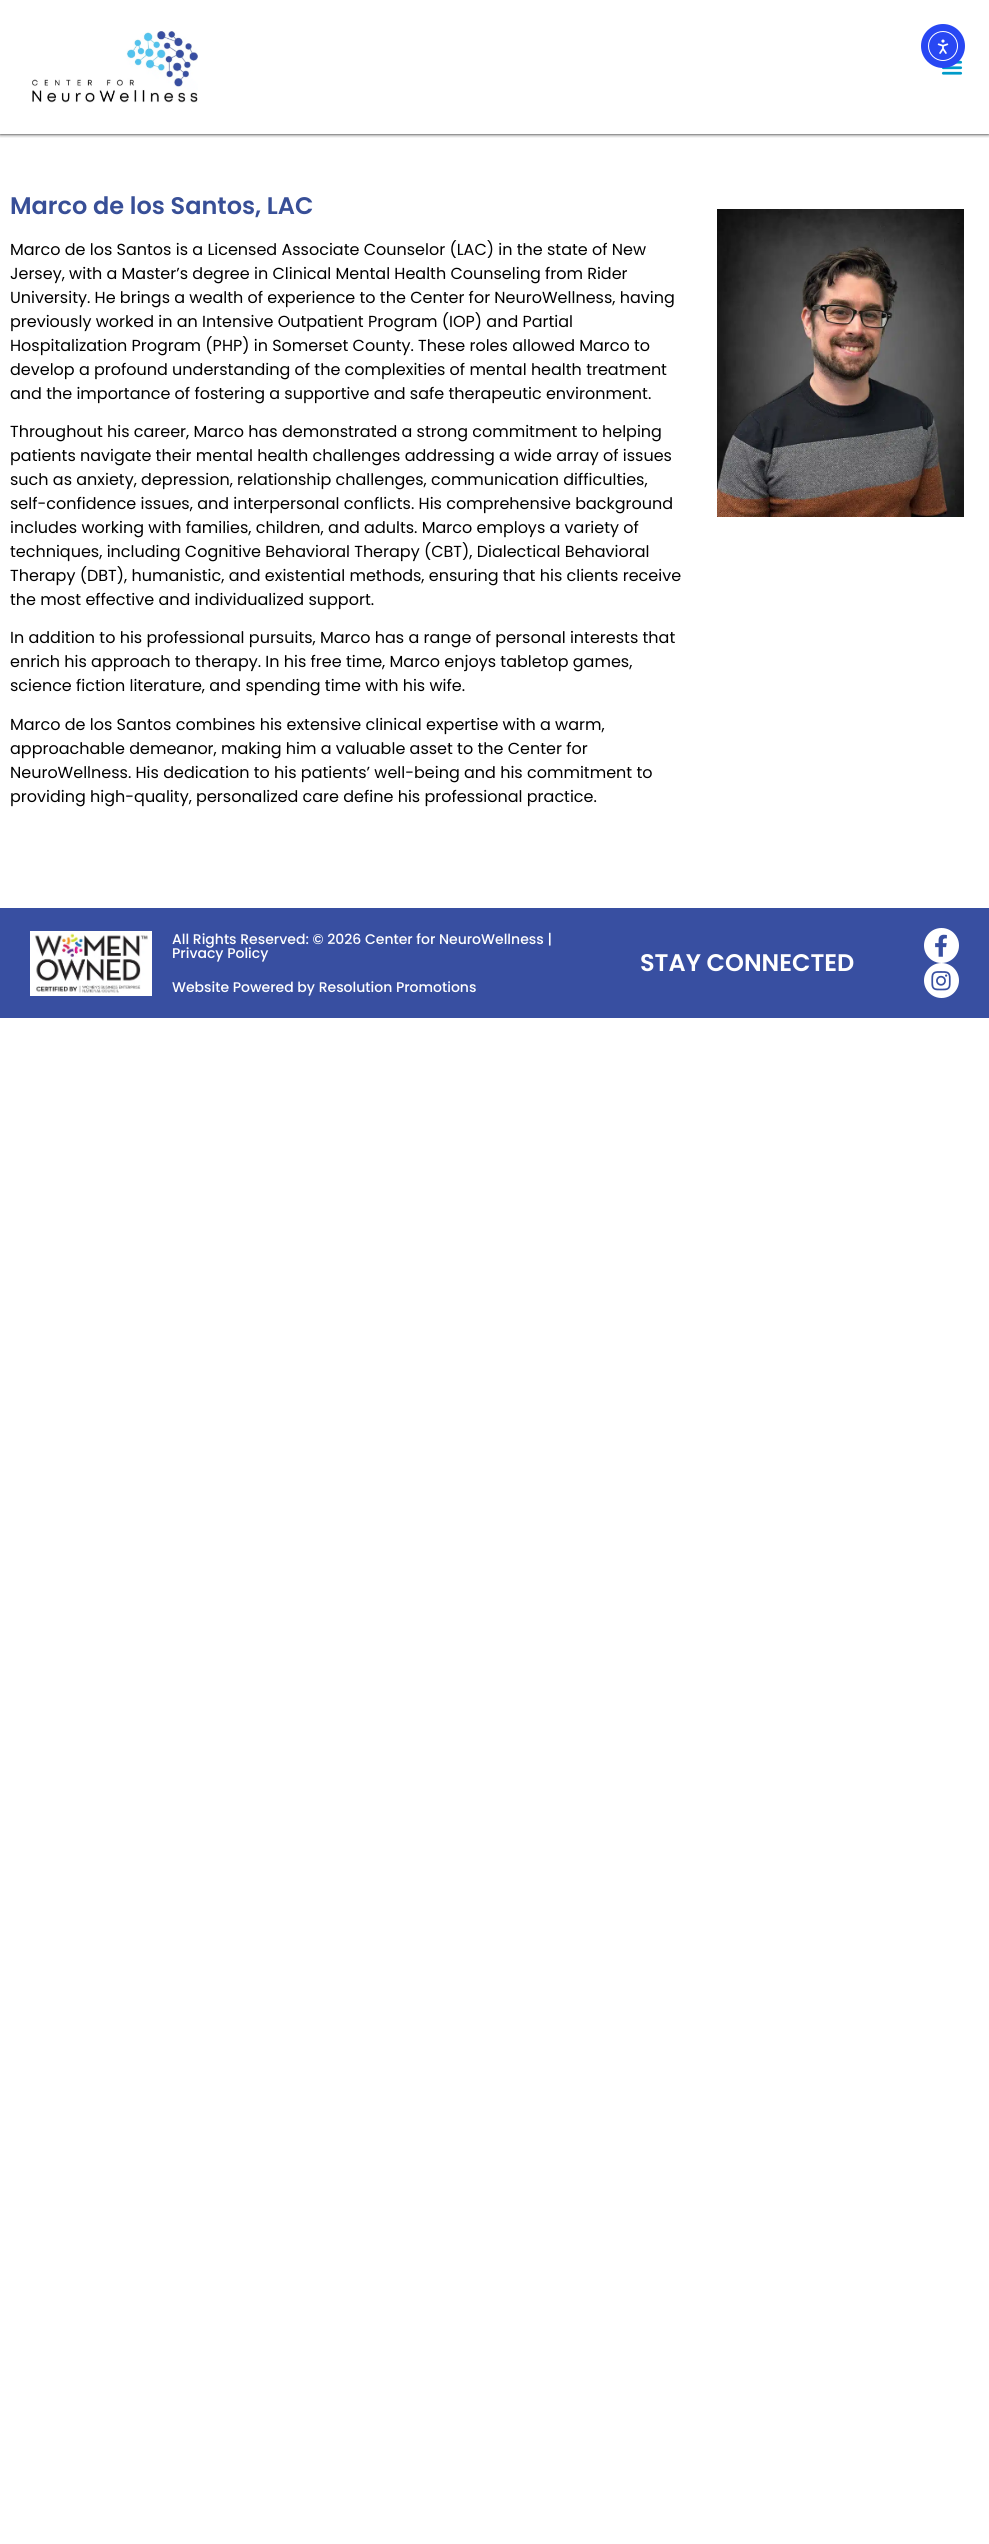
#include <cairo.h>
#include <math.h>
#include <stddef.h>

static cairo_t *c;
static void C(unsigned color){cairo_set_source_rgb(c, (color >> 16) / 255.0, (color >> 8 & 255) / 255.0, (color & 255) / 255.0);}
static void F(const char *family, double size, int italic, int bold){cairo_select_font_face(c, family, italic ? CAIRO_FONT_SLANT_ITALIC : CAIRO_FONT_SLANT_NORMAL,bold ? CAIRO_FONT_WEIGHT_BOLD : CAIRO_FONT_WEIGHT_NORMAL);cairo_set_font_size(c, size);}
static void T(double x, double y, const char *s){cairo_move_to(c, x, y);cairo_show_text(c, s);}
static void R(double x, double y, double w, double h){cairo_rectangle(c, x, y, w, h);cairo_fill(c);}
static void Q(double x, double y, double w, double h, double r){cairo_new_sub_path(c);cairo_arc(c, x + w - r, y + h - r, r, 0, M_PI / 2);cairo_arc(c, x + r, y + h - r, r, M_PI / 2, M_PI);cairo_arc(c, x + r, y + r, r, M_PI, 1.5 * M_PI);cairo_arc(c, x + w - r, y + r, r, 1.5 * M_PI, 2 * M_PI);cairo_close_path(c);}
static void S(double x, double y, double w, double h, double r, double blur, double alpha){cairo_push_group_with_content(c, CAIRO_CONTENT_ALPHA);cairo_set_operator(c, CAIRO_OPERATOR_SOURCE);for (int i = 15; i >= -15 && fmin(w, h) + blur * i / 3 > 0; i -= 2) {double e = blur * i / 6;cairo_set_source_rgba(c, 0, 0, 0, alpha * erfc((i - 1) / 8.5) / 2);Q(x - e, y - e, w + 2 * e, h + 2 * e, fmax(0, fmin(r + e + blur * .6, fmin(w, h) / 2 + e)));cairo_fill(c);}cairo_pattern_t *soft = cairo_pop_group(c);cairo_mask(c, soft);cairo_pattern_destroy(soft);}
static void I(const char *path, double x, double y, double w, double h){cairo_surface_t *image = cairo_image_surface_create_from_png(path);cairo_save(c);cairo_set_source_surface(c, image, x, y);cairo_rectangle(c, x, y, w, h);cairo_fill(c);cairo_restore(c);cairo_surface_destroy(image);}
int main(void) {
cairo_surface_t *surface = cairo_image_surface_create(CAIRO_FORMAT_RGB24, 989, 2544);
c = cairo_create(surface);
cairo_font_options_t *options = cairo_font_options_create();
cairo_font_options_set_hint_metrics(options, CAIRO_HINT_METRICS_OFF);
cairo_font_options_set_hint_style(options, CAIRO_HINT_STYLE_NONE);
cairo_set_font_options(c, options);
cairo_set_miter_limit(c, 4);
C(0xffffff);
cairo_paint(c);
cairo_save(c);
cairo_rectangle(c,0,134,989,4);
cairo_clip(c);
C(0x000000);
S(0,0,989,134,0,2,1);
cairo_restore(c);
I("1.png",32,31,166,72);
I("2.png",941,60,22,15);
C(0x2847f3);
cairo_arc(c,943,46,22,0,2 * M_PI);
cairo_fill(c);
cairo_arc(c,943,46,14.5,0,2 * M_PI);
C(0xffffff);
cairo_set_line_width(c,1);
cairo_stroke(c);
I("3.png",937,39,12,15);
F("Poppins SemiBold",24,0,0);
C(0x384f97);
T(10,214,"Marco de los Santos, LAC");
F("Poppins",16,0,0);
C(0x000000);
T(10,255,"Marco de los Santos is a Licensed Associate Counselor (LAC) in the state of New");
T(10,279,"Jersey, with a Master’s degree in Clinical Mental Health Counseling from Rider");
T(10,303,"University. He brings a wealth of experience to the Center for NeuroWellness, having");
T(10,327,"previously worked in an Intensive Outpatient Program (IOP) and Partial");
T(10,351,"Hospitalization Program (PHP) in Somerset County. These roles allowed Marco to");
T(10,375,"develop a profound understanding of the complexities of mental health treatment");
T(10,399,"and the importance of fostering a supportive and safe therapeutic environment.");
T(10,437,"Throughout his career, Marco has demonstrated a strong commitment to helping");
T(10,461,"patients navigate their mental health challenges addressing a wide array of issues");
T(10,485,"such as anxiety, depression, relationship challenges, communication difficulties,");
T(10,509,"self-confidence issues, and interpersonal conflicts. His comprehensive background");
T(10,533,"includes working with families, children, and adults. Marco employs a variety of");
T(10,557,"techniques, including Cognitive Behavioral Therapy (CBT), Dialectical Behavioral");
T(10,581,"Therapy (DBT), humanistic, and existential methods, ensuring that his clients receive");
T(10,605,"the most effective and individualized support.");
T(10,643,"In addition to his professional pursuits, Marco has a range of personal interests that");
T(10,667,"enrich his approach to therapy. In his free time, Marco enjoys tabletop games,");
T(10,691,"science fiction literature, and spending time with his wife.");
T(10,730,"Marco de los Santos combines his extensive clinical expertise with a warm,");
T(10,754,"approachable demeanor, making him a valuable asset to the Center for");
T(10,778,"NeuroWellness. His dedication to his patients’ well-being and his commitment to");
T(10,802,"providing high-quality, personalized care define his professional practice.");
I("4.png",717,209,247,308);
C(0x384fa1);
R(0,908,989,110);
I("5.png",30,931,122,65);
F("Poppins Medium",14,0,0);
C(0xffffff);
T(172,944,"All Rights Reserved: © 2026 Center for NeuroWellness |");
T(172,958,"Privacy Policy");
T(172,992,"Website Powered by Resolution Promotions");
F("Poppins SemiBold",24,0,0);
T(640,971,"STAY CONNECTED");
cairo_new_path(c);
cairo_arc(c,941.5,945.5,17.5,0,2 * M_PI);
cairo_fill(c);
I("6.png",935,934,12,23);
cairo_arc(c,941.5,980.5,17.5,0,2 * M_PI);
cairo_fill(c);
I("7.png",931,971,20,20);
cairo_surface_write_to_png(surface, "o.png");
cairo_font_options_destroy(options);
cairo_destroy(c);
cairo_surface_destroy(surface);
return 0;
}
